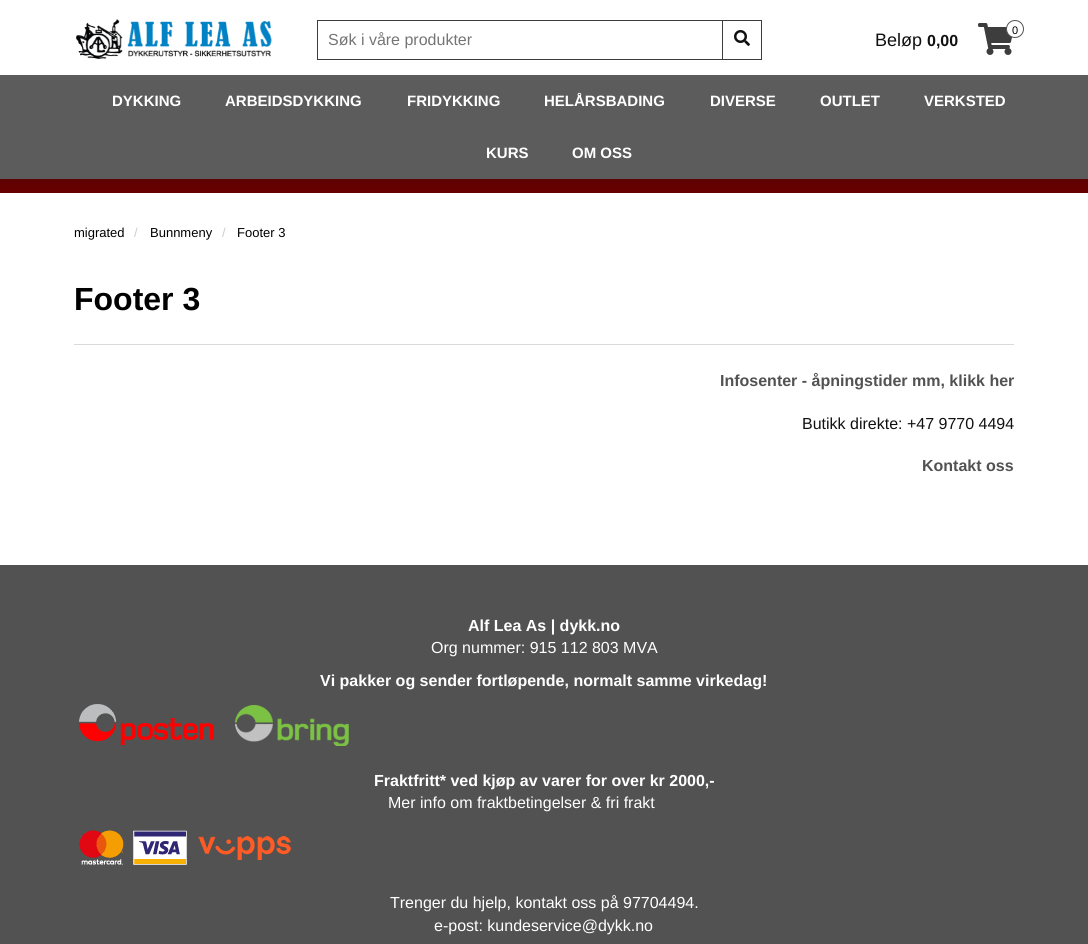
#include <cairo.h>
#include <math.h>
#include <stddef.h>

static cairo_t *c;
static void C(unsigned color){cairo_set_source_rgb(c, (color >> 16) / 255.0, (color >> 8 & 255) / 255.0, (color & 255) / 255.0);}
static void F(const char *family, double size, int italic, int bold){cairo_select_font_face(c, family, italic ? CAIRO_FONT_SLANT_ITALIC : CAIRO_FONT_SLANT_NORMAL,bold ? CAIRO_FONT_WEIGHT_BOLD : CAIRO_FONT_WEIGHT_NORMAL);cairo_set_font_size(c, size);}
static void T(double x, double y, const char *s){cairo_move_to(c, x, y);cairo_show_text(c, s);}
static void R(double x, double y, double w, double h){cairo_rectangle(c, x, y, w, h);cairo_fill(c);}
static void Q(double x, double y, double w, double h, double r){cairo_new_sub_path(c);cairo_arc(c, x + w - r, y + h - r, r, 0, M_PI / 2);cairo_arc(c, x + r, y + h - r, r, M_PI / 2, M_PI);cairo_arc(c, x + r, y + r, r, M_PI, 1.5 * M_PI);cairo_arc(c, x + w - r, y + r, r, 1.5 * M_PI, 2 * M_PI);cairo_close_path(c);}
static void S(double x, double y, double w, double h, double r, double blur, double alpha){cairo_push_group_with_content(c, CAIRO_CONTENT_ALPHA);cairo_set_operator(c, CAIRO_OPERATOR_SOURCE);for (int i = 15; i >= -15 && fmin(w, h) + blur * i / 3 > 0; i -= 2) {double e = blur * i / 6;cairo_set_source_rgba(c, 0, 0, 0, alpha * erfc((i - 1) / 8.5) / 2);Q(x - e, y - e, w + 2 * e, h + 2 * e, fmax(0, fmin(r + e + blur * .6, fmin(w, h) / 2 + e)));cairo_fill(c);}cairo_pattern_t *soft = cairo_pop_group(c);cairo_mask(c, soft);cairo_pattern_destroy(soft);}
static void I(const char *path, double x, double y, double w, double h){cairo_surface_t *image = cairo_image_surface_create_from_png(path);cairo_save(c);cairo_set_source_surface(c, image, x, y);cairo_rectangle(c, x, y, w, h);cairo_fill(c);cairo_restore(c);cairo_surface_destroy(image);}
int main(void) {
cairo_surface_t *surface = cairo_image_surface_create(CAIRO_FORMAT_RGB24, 1088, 944);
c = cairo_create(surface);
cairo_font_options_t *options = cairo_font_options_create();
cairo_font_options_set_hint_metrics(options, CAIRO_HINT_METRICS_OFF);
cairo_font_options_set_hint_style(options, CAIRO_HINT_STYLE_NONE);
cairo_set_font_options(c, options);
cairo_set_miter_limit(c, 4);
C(0xffffff);
cairo_paint(c);
C(0x660000);
R(0,179,1088,14);
C(0x111111);
S(0,1,1088,179,0,5,.2);
C(0x5c5c5c);
R(0,75,1088,104);
C(0xffffff);
R(0,0,1088,75);
I("1.png",76,19,196,40);
cairo_rectangle(c,317.5,20.5,409,39);
C(0x3d3d3d);
cairo_set_line_width(c,1);
cairo_stroke(c);
F("Liberation Sans",16,0,0);
C(0x757575);
T(328,45,"Søk i våre produkter");
C(0xffffff);
R(726,21,1,38);
cairo_rectangle(c,722.5,20.5,39,39);
C(0x3d3d3d);
cairo_stroke(c);
I("2.png",734,30,16,16);
I("3.png",978,23,34,32);
C(0xffffff);
cairo_arc(c,1015,29,8.5,0,2 * M_PI);
cairo_fill_preserve(c);
C(0x525252);
cairo_stroke(c);
F("Liberation Sans",11,0,0);
C(0x000000);
T(1012,34,"0");
F("Liberation Sans",18,0,0);
C(0x111111);
T(875,46,"Beløp");
F("Liberation Sans",16,0,1);
T(927,46,"0,00");
F("Liberation Sans",15,0,1);
C(0xffffff);
T(112,106,"DYKKING");
T(225,106,"ARBEIDSDYKKING");
T(407,106,"FRIDYKKING");
T(544,106,"HELÅRSBADING");
T(710,106,"DIVERSE");
T(820,106,"OUTLET");
T(924,106,"VERKSTED");
T(486,158,"KURS");
T(572,158,"OM OSS");
F("Liberation Sans",13,0,0);
C(0x000000);
T(74,237,"migrated");
C(0xcccccc);
T(134,237,"/");
C(0x000000);
T(150,237,"Bunnmeny");
C(0xcccccc);
T(222,237,"/");
C(0x000000);
T(237,237,"Footer 3");
F("Liberation Sans",32,0,1);
T(74,310,"Footer 3");
C(0xdadada);
R(74,344,940,1);
F("Liberation Sans",16,0,1);
C(0x525252);
T(720,386,"Infosenter - åpningstider mm, klikk her");
F("Liberation Sans",16,0,0);
C(0x111111);
T(802,429,"Butikk direkte: +47 9770 4494");
F("Liberation Sans",16,0,1);
C(0x525252);
T(922,471,"Kontakt oss");
R(0,565,1088,379);
C(0xffffff);
T(468,631,"Alf Lea As | dykk.no");
F("Liberation Sans",16,0,0);
T(431,653,"Org nummer: 915 112 803 MVA");
F("Liberation Sans",16,0,1);
T(320,686,"Vi pakker og sender fortløpende, normalt samme virkedag!");
I("4.png",79,704,270,42);
T(374,786,"Fraktfritt* ved kjøp av varer for over kr 2000,-");
F("Liberation Sans",16,0,0);
T(388,808,"Mer info om fraktbetingelser & fri frakt");
I("5.png",79,830,212,35);
T(390,908,"Trenger du hjelp, kontakt oss på 97704494.");
T(434,931,"e-post: kundeservice@dykk.no");
cairo_surface_write_to_png(surface, "o.png");
cairo_font_options_destroy(options);
cairo_destroy(c);
cairo_surface_destroy(surface);
return 0;
}
